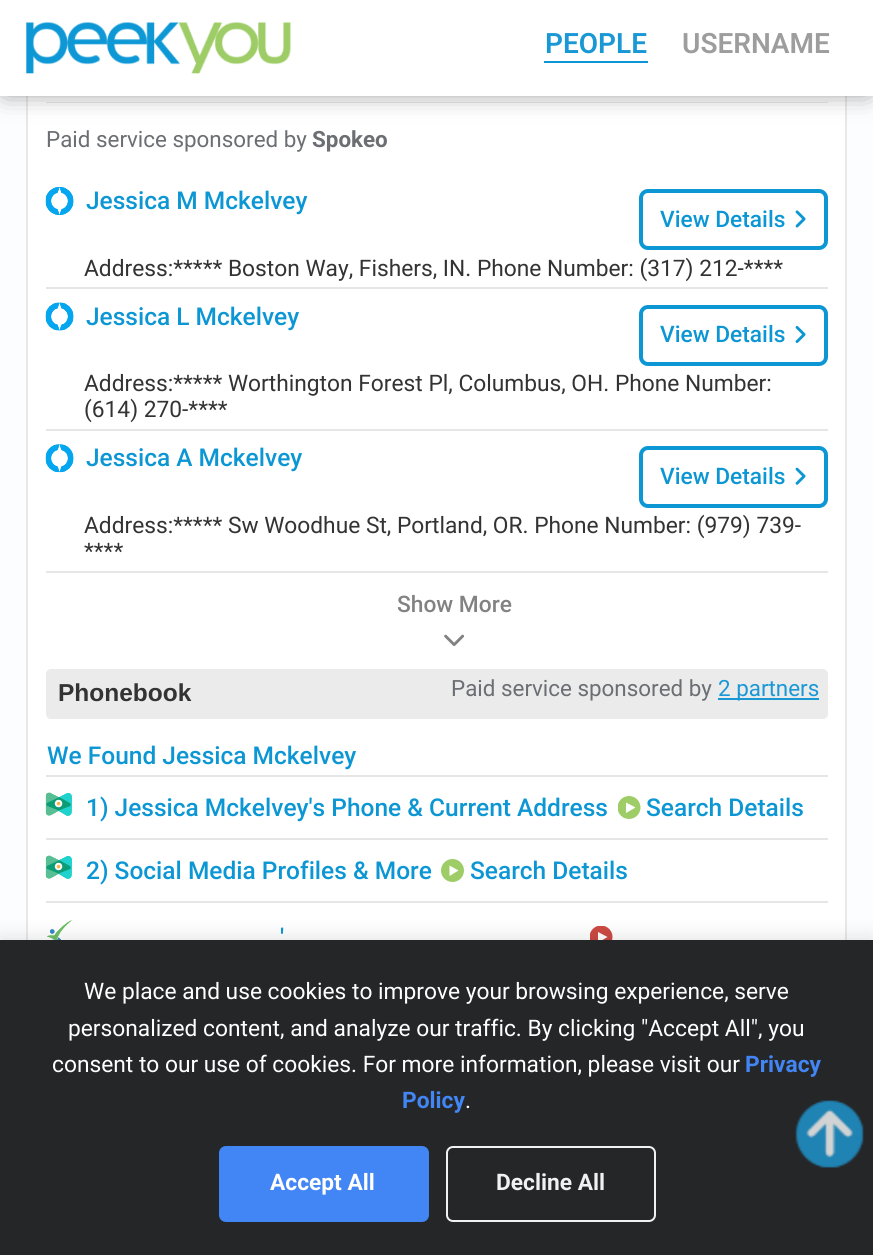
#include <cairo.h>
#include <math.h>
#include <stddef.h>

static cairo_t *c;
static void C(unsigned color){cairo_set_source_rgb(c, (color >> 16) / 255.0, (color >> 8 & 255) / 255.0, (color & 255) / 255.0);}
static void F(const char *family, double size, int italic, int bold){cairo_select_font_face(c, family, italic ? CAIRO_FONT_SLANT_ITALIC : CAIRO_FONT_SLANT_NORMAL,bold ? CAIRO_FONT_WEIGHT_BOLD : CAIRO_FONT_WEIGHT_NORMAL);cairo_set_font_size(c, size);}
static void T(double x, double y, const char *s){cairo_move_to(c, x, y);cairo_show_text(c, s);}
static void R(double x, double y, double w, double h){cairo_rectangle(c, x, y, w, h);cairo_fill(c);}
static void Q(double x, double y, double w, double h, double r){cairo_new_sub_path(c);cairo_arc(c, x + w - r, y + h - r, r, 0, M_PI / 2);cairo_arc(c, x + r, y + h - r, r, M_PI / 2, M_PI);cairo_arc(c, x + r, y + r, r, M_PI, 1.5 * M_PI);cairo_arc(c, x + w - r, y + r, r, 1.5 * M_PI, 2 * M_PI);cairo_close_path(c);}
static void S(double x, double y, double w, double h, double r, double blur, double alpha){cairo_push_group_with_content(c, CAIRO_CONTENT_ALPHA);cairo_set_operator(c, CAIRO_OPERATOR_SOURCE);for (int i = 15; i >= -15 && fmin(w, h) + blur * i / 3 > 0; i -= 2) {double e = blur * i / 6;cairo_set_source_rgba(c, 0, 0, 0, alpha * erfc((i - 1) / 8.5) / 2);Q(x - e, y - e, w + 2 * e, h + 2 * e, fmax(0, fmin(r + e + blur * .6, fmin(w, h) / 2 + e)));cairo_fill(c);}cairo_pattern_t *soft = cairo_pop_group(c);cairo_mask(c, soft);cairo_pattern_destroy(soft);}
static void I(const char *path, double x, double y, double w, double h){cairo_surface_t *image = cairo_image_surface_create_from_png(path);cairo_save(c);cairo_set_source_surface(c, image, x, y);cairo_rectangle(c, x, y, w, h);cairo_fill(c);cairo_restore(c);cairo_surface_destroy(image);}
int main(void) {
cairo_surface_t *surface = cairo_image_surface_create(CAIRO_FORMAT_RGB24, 873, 1255);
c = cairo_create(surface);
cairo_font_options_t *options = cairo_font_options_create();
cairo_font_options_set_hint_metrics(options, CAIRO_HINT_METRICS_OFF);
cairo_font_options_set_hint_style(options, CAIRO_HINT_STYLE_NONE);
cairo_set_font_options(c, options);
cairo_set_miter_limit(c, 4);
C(0xfbfdff);
cairo_paint(c);
C(0xffffff);
R(28,96,817,844);
cairo_rectangle(c,27,-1,819,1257);
C(0xe8e8e8);
cairo_stroke(c);
C(0xe6e6e6);
R(46,102,782,1);
C(0x000000);
S(5,5,863,86,0,13,.5);
C(0xffffff);
R(0,0,873,96);
I("1.png",26,22,265,52);
F("Roboto SemiBold",28,0,0);
C(0x1a98d5);
T(545,53,"PEOPLE");
C(0x0c97d4);
R(544,61,104,2);
C(0x9d9d9d);
T(682,53,"USERNAME");
F("Roboto",22.4,0,0);
C(0x6b6e72);
T(46,147,"Paid service sponsored by");
F("Roboto",22.4,0,1);
T(312,147,"Spokeo");
C(0xe6e6e6);
R(46,287,782,2);
I("2.png",45,187,29,28);
I("3.png",45,187,29,28);
F("Roboto Medium",24.5,0,0);
C(0x0c97d4);
T(86,209,"Jessica M Mckelvey");
Q(641,191,185,57,7);
cairo_set_line_width(c,4);
cairo_stroke(c);
F("Roboto Medium",22.75,0,0);
T(660,227,"View Details");
I("4.png",795,210,11,18);
F("Roboto",22.75,0,0);
C(0x333333);
T(84,276,"Address:***** Boston Way, Fishers, IN. Phone Number: (317) 212-****");
C(0xe6e6e6);
R(46,429,782,2);
I("5.png",45,302,29,29);
I("6.png",45,302,29,29);
F("Roboto Medium",24.5,0,0);
C(0x0c97d4);
T(86,325,"Jessica L Mckelvey");
Q(641,307,185,57,7);
cairo_stroke(c);
F("Roboto Medium",22.75,0,0);
T(660,342,"View Details");
I("7.png",795,326,11,17);
F("Roboto",22.75,0,0);
C(0x333333);
T(84,391,"Address:***** Worthington Forest Pl, Columbus, OH. Phone Number:");
T(84,417,"(614) 270-****");
C(0xe6e6e6);
R(46,571,782,2);
I("8.png",45,444,29,29);
I("9.png",45,444,29,29);
F("Roboto Medium",24.5,0,0);
C(0x0c97d4);
T(86,466,"Jessica A Mckelvey");
Q(641,448,185,58,7);
cairo_stroke(c);
F("Roboto Medium",22.75,0,0);
T(660,484,"View Details");
I("10.png",795,467,11,18);
F("Roboto",22.75,0,0);
C(0x333333);
T(84,533,"Address:***** Sw Woodhue St, Portland, OR. Phone Number: (979) 739-");
T(84,559,"****");
F("Roboto Medium",22.75,0,0);
C(0x828282);
T(397,612,"Show More");
I("11.png",444,634,20,12);
C(0xebebeb);
Q(46,669,782,50,5);
cairo_fill(c);
F("Roboto",22.4,0,0);
C(0x6b6e72);
T(451,696,"Paid service sponsored by");
C(0x1a98d5);
R(718,698,101,2);
T(718,696,"2 partners");
C(0xe6e6e6);
R(46,775,782,2);
F("Roboto Medium",24.5,0,0);
C(0x0c97d4);
T(47,764,"We Found Jessica Mckelvey");
C(0xe6e6e6);
R(46,838,782,2);
I("12.png",45,792,27,24);
I("13.png",45,792,27,24);
C(0x0c97d4);
T(86,816,"1) Jessica Mckelvey's Phone & Current Address");
cairo_save(c);
cairo_rectangle(c,618,796,23,23);
cairo_clip(c);
C(0x9ecd67);
cairo_arc(c,629,807.5,11.5,0,2 * M_PI);
cairo_fill(c);
cairo_restore(c);
T(646,816,"Search Details");
C(0xffffff);
cairo_new_path(c);
cairo_move_to(c,635.5,807.5);
cairo_line_to(c,626,813);
cairo_line_to(c,626,802.5);
cairo_close_path(c);
cairo_fill(c);
C(0xe6e6e6);
R(46,901,782,2);
I("12.png",45,855,27,24);
I("13.png",45,855,27,24);
C(0x0c97d4);
T(86,879,"2) Social Media Profiles & More");
C(0x9ecd67);
cairo_new_path(c);
cairo_arc(c,452.5,870.5,11.5,0,2 * M_PI);
cairo_fill(c);
C(0x0c97d4);
T(470,879,"Search Details");
C(0xffffff);
cairo_new_path(c);
cairo_move_to(c,458.5,870.5);
cairo_line_to(c,449.5,876);
cairo_line_to(c,449.5,865.5);
cairo_close_path(c);
cairo_fill(c);
F("Liberation Sans",24.5,0,1);
C(0x333333);
T(58,701,"Phonebook");
I("14.png",47,920,25,20);
I("15.png",47,920,25,20);
F("Roboto Medium",24.5,0,0);
C(0x0c97d4);
T(280,946,"'");
cairo_save(c);
cairo_rectangle(c,590,926,23,23);
cairo_clip(c);
C(0xcc4943);
cairo_arc(c,601,937,11.5,0,2 * M_PI);
cairo_fill(c);
cairo_restore(c);
C(0xffffff);
cairo_new_path(c);
cairo_move_to(c,607.5,937);
cairo_line_to(c,598,942.5);
cairo_line_to(c,598,932);
cairo_close_path(c);
cairo_fill(c);
C(0x000000);
S(0,936,873,317,0,9,.1);
C(0x252627);
R(0,940,873,315);
F("Roboto",22.75,0,0);
C(0xffffff);
T(84,999,"We place and use cookies to improve your browsing experience, serve");
T(68,1036,"personalized content, and analyze our traffic. By clicking \"Accept All\", you");
T(52,1072,"consent to our use of cookies. For more information, please visit our");
F("Roboto",22.75,0,1);
C(0x4285f4);
T(745,1072,"Privacy");
T(402,1108,"Policy");
F("Roboto",22.75,0,0);
C(0xffffff);
T(465,1108,".");
C(0x4285f4);
Q(219,1146,210,76,7);
cairo_fill(c);
F("Roboto",22.75,0,1);
C(0xffffff);
T(270,1190,"Accept All");
Q(447,1147,208,74,6);
C(0xf1f1f1);
cairo_set_line_width(c,2);
cairo_stroke(c);
T(496,1190,"Decline All");
I("16.png",795,1100,69,68);
cairo_surface_write_to_png(surface, "o.png");
cairo_font_options_destroy(options);
cairo_destroy(c);
cairo_surface_destroy(surface);
return 0;
}
